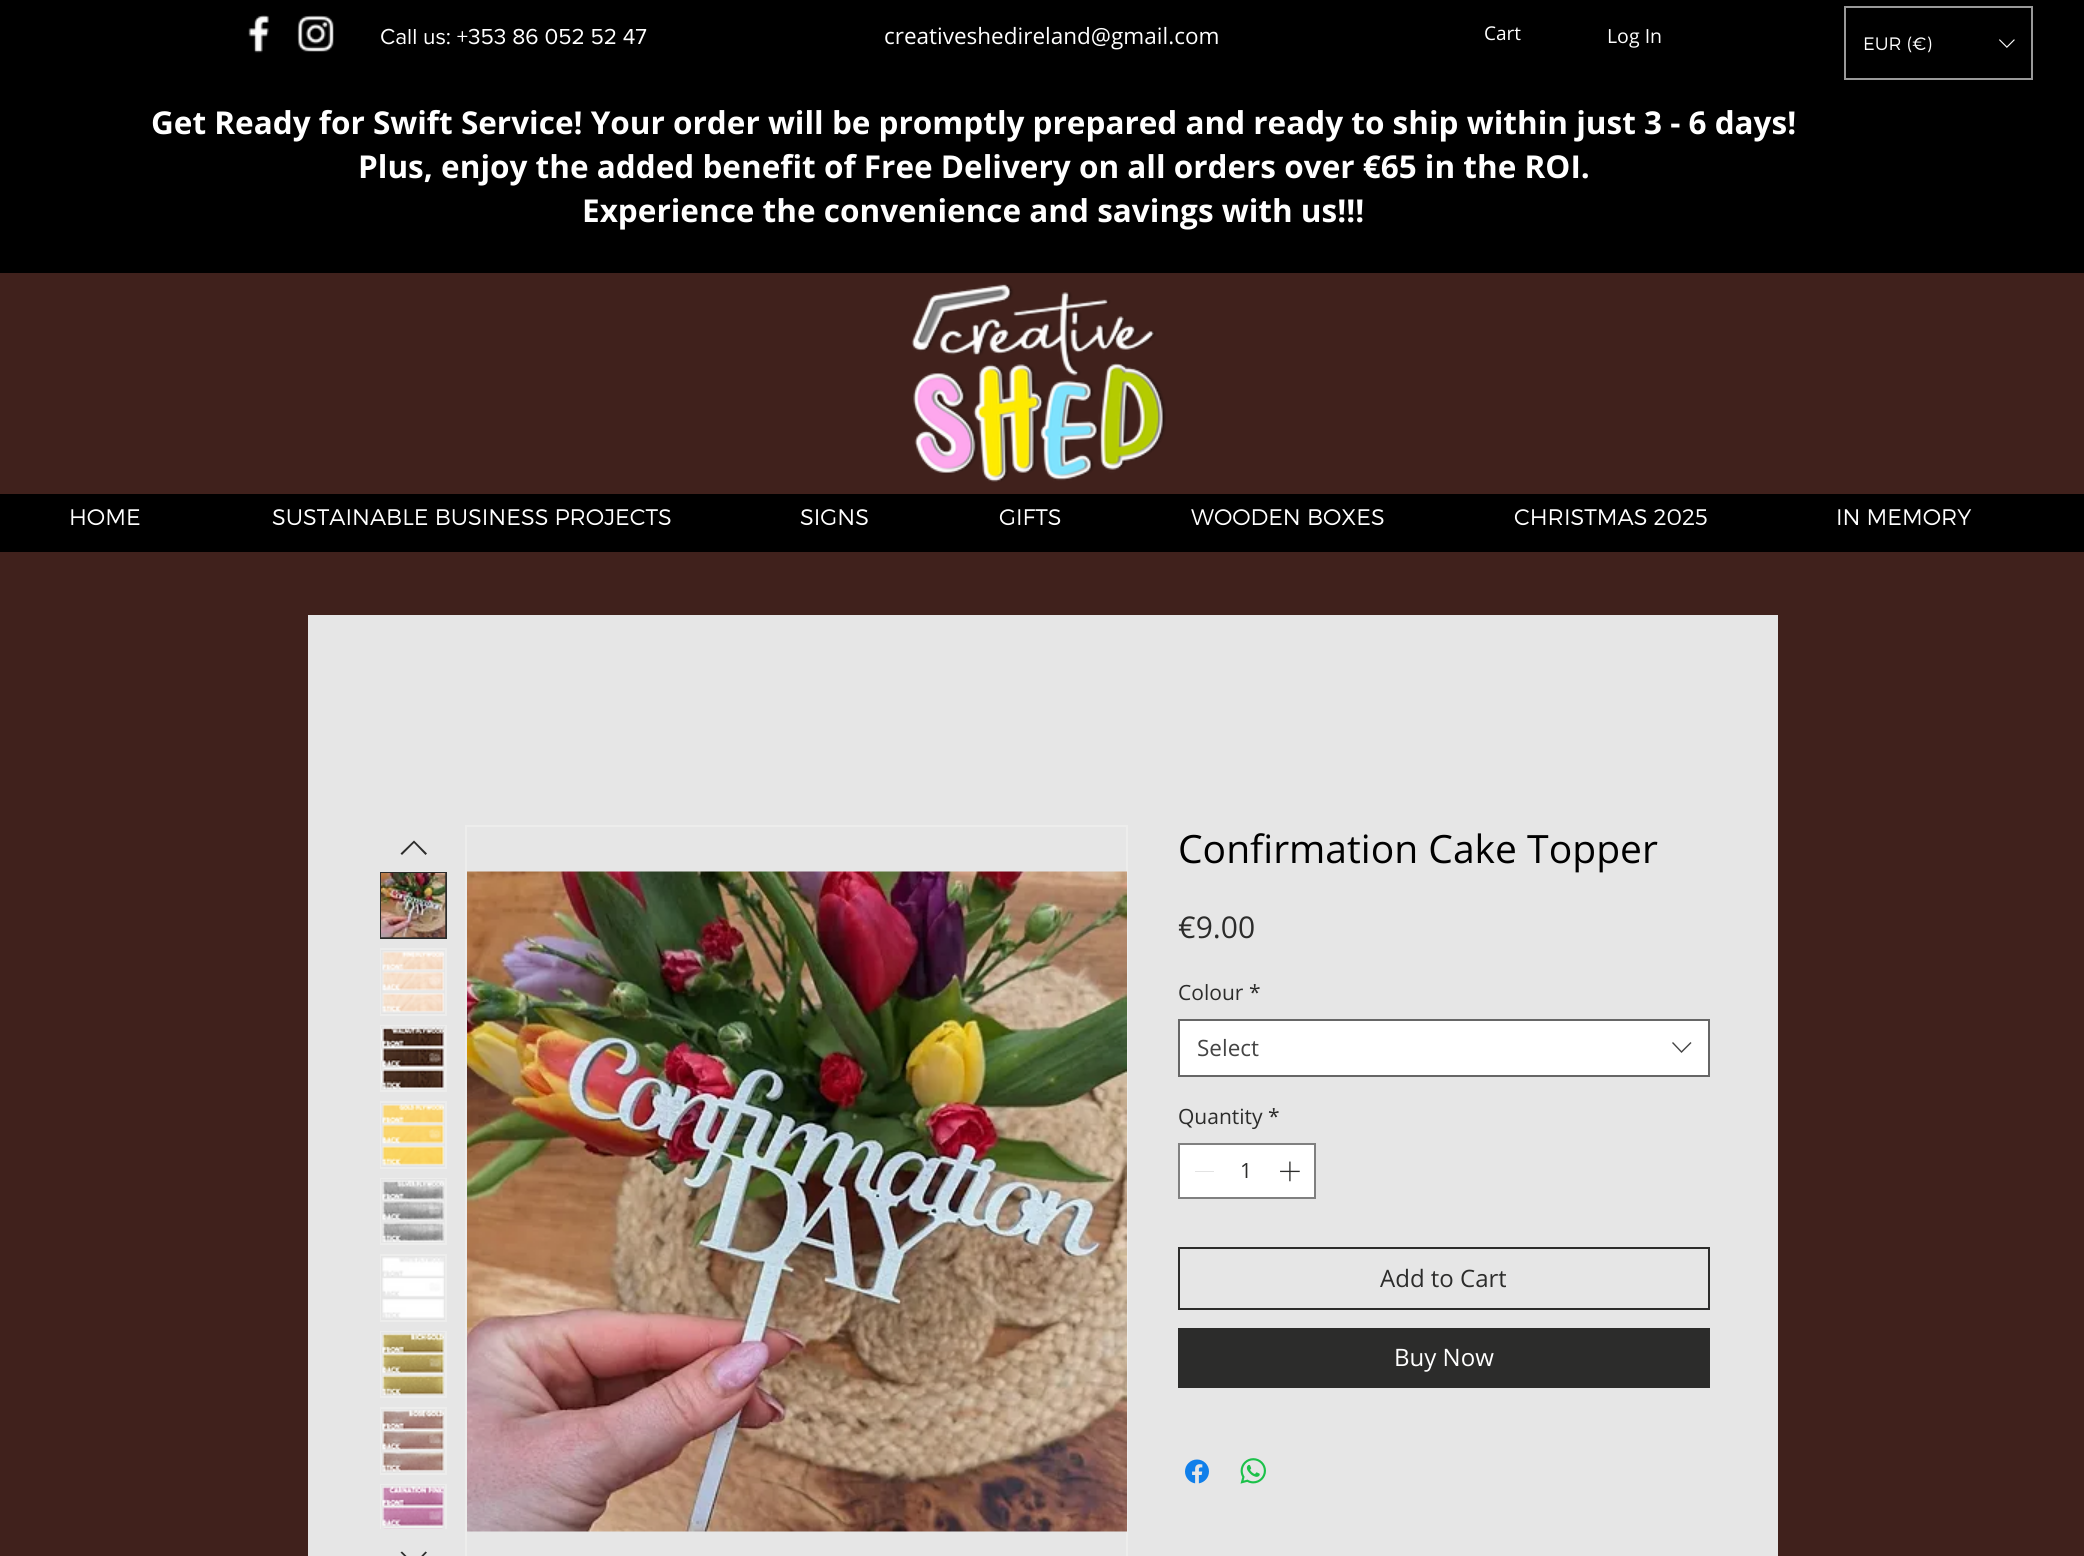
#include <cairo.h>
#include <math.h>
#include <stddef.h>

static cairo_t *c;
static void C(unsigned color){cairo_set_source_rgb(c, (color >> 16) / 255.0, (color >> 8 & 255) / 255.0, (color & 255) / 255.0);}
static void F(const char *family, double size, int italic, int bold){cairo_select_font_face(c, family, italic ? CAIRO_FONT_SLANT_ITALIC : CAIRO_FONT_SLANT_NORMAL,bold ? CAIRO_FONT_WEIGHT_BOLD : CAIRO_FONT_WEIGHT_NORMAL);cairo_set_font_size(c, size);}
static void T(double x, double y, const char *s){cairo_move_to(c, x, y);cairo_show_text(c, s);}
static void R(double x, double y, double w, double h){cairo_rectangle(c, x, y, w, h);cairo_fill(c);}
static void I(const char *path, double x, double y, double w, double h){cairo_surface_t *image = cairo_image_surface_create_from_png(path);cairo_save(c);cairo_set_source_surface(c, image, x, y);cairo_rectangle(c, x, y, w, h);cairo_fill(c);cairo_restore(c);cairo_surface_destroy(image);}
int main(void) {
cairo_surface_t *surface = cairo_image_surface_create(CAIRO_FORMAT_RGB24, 2084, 1556);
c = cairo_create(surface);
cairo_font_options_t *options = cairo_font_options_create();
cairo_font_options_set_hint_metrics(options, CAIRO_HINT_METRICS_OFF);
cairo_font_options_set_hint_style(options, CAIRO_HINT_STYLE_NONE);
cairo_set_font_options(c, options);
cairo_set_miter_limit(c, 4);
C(0x40211c);
cairo_paint(c);
C(0x000000);
R(0,0,2084,273);
I("1.png",248,15,21,38);
I("2.png",297,15,37,37);
F("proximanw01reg",22.5,0,0);
C(0xffffff);
T(380,44,"Call us: +353 86 052 52 47");
F("Open Sans",22.5,0,0);
T(884,44,"creativeshedireland@gmail.com");
F("Open Sans",19,0,0);
T(1484,40,"Cart");
F("Open Sans",19.5,0,0);
T(1607,43,"Log In");
cairo_rectangle(c,1845,7,187,72);
C(0x999999);
cairo_stroke(c);
F("Montserrat Light",18,0,0);
C(0xffffff);
T(1863,50,"EUR (€)");
I("3.png",1999,39,16,9);
F("Open Sans",31.5,0,1);
T(151,134,"Get Ready for Swift Service! Your order will be promptly prepared and ready to ship within just 3 - 6 days!");
T(358,178,"Plus, enjoy the added benefit of Free Delivery on all orders over €65 in the ROI.");
T(582,222,"Experience the convenience and savings with us!!!");
I("4.png",911,284,255,198);
C(0x000000);
R(0,494,2084,58);
F("Montserrat Light",22.5,0,0);
C(0xffffff);
T(69,525,"HOME");
T(272,525,"SUSTAINABLE BUSINESS PROJECTS");
T(800,525,"SIGNS");
T(999,525,"GIFTS");
T(1191,525,"WOODEN BOXES");
T(1514,525,"CHRISTMAS 2025");
T(1836,525,"IN MEMORY");
C(0xe6e6e6);
R(308,615,1470,941);
C(0x2c2c2b);
cairo_set_fill_rule(c,CAIRO_FILL_RULE_EVEN_ODD);
cairo_new_path(c);
cairo_move_to(c,414,840.5);
cairo_line_to(c,427,853.5);
cairo_line_to(c,425.5,855);
cairo_line_to(c,414,843);
cairo_line_to(c,402,855);
cairo_line_to(c,400.5,853.5);
cairo_close_path(c);
cairo_fill(c);
cairo_rectangle(c,381,873,65,65);
cairo_stroke(c);
I("5.png",381,873,65,65);
C(0xededec);
R(380,948,67,68);
I("6.png",381,950,64,64);
R(380,1025,67,67);
I("7.png",381,1026,65,64);
R(380,1101,67,68);
I("8.png",381,1103,64,64);
R(380,1178,67,67);
I("9.png",381,1179,64,64);
R(380,1254,67,68);
I("10.png",381,1256,64,64);
R(380,1331,67,67);
I("11.png",381,1332,64,64);
R(380,1407,67,68);
I("12.png",381,1409,64,64);
R(380,1484,67,45);
I("13.png",381,1485,64,44);
C(0x2c2c2b);
cairo_new_path(c);
cairo_move_to(c,425.5,1551.5);
cairo_line_to(c,427,1552.5);
cairo_line_to(c,414,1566);
cairo_line_to(c,400.5,1552.5);
cairo_line_to(c,402,1551.5);
cairo_line_to(c,414,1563.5);
cairo_close_path(c);
cairo_fill(c);
cairo_rectangle(c,466,826,661,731);
C(0xededec);
cairo_stroke(c);
I("14.png",467,871,660,661);
F("Open Sans",39,0,0);
C(0x000000);
T(1178,863,"Confirmation Cake Topper");
F("Open Sans",30,0,0);
C(0x2c2c2b);
T(1178,938,"€9.00");
F("Open Sans",21,0,0);
T(1178,1000,"Colour");
T(1249,1000,"*");
C(0xffffff);
cairo_rectangle(c,1179,1020,530,56);
cairo_fill_preserve(c);
C(0x666666);
cairo_stroke(c);
F("Open Sans",22.5,0,0);
C(0x444444);
T(1197,1056,"Select");
cairo_new_path(c);
cairo_move_to(c,1690.5,1042);
cairo_line_to(c,1691.5,1043);
cairo_line_to(c,1681.5,1053);
cairo_line_to(c,1672,1043);
cairo_line_to(c,1673,1042);
cairo_line_to(c,1681.5,1051);
cairo_close_path(c);
cairo_fill(c);
F("Open Sans",21,0,0);
C(0x2c2c2b);
T(1178,1124,"Quantity");
T(1268,1124,"*");
C(0xffffff);
cairo_rectangle(c,1179,1144,136,54);
cairo_fill_preserve(c);
C(0x808080);
cairo_stroke(c);
C(0xe3e3e3);
R(1195,1171,19,1);
C(0x2c2c2b);
T(1240,1178,"1");
I("15.png",1280,1161,20,21);
cairo_rectangle(c,1179,1248,530,61);
cairo_stroke(c);
F("Open Sans",24,0,0);
T(1380,1287,"Add to Cart");
R(1178,1328,532,60);
C(0xffffff);
T(1394,1366,"Buy Now");
I("16.png",1185,1459,24,25);
I("17.png",1240,1458,26,26);
cairo_surface_write_to_png(surface, "o.png");
cairo_font_options_destroy(options);
cairo_destroy(c);
cairo_surface_destroy(surface);
return 0;
}
